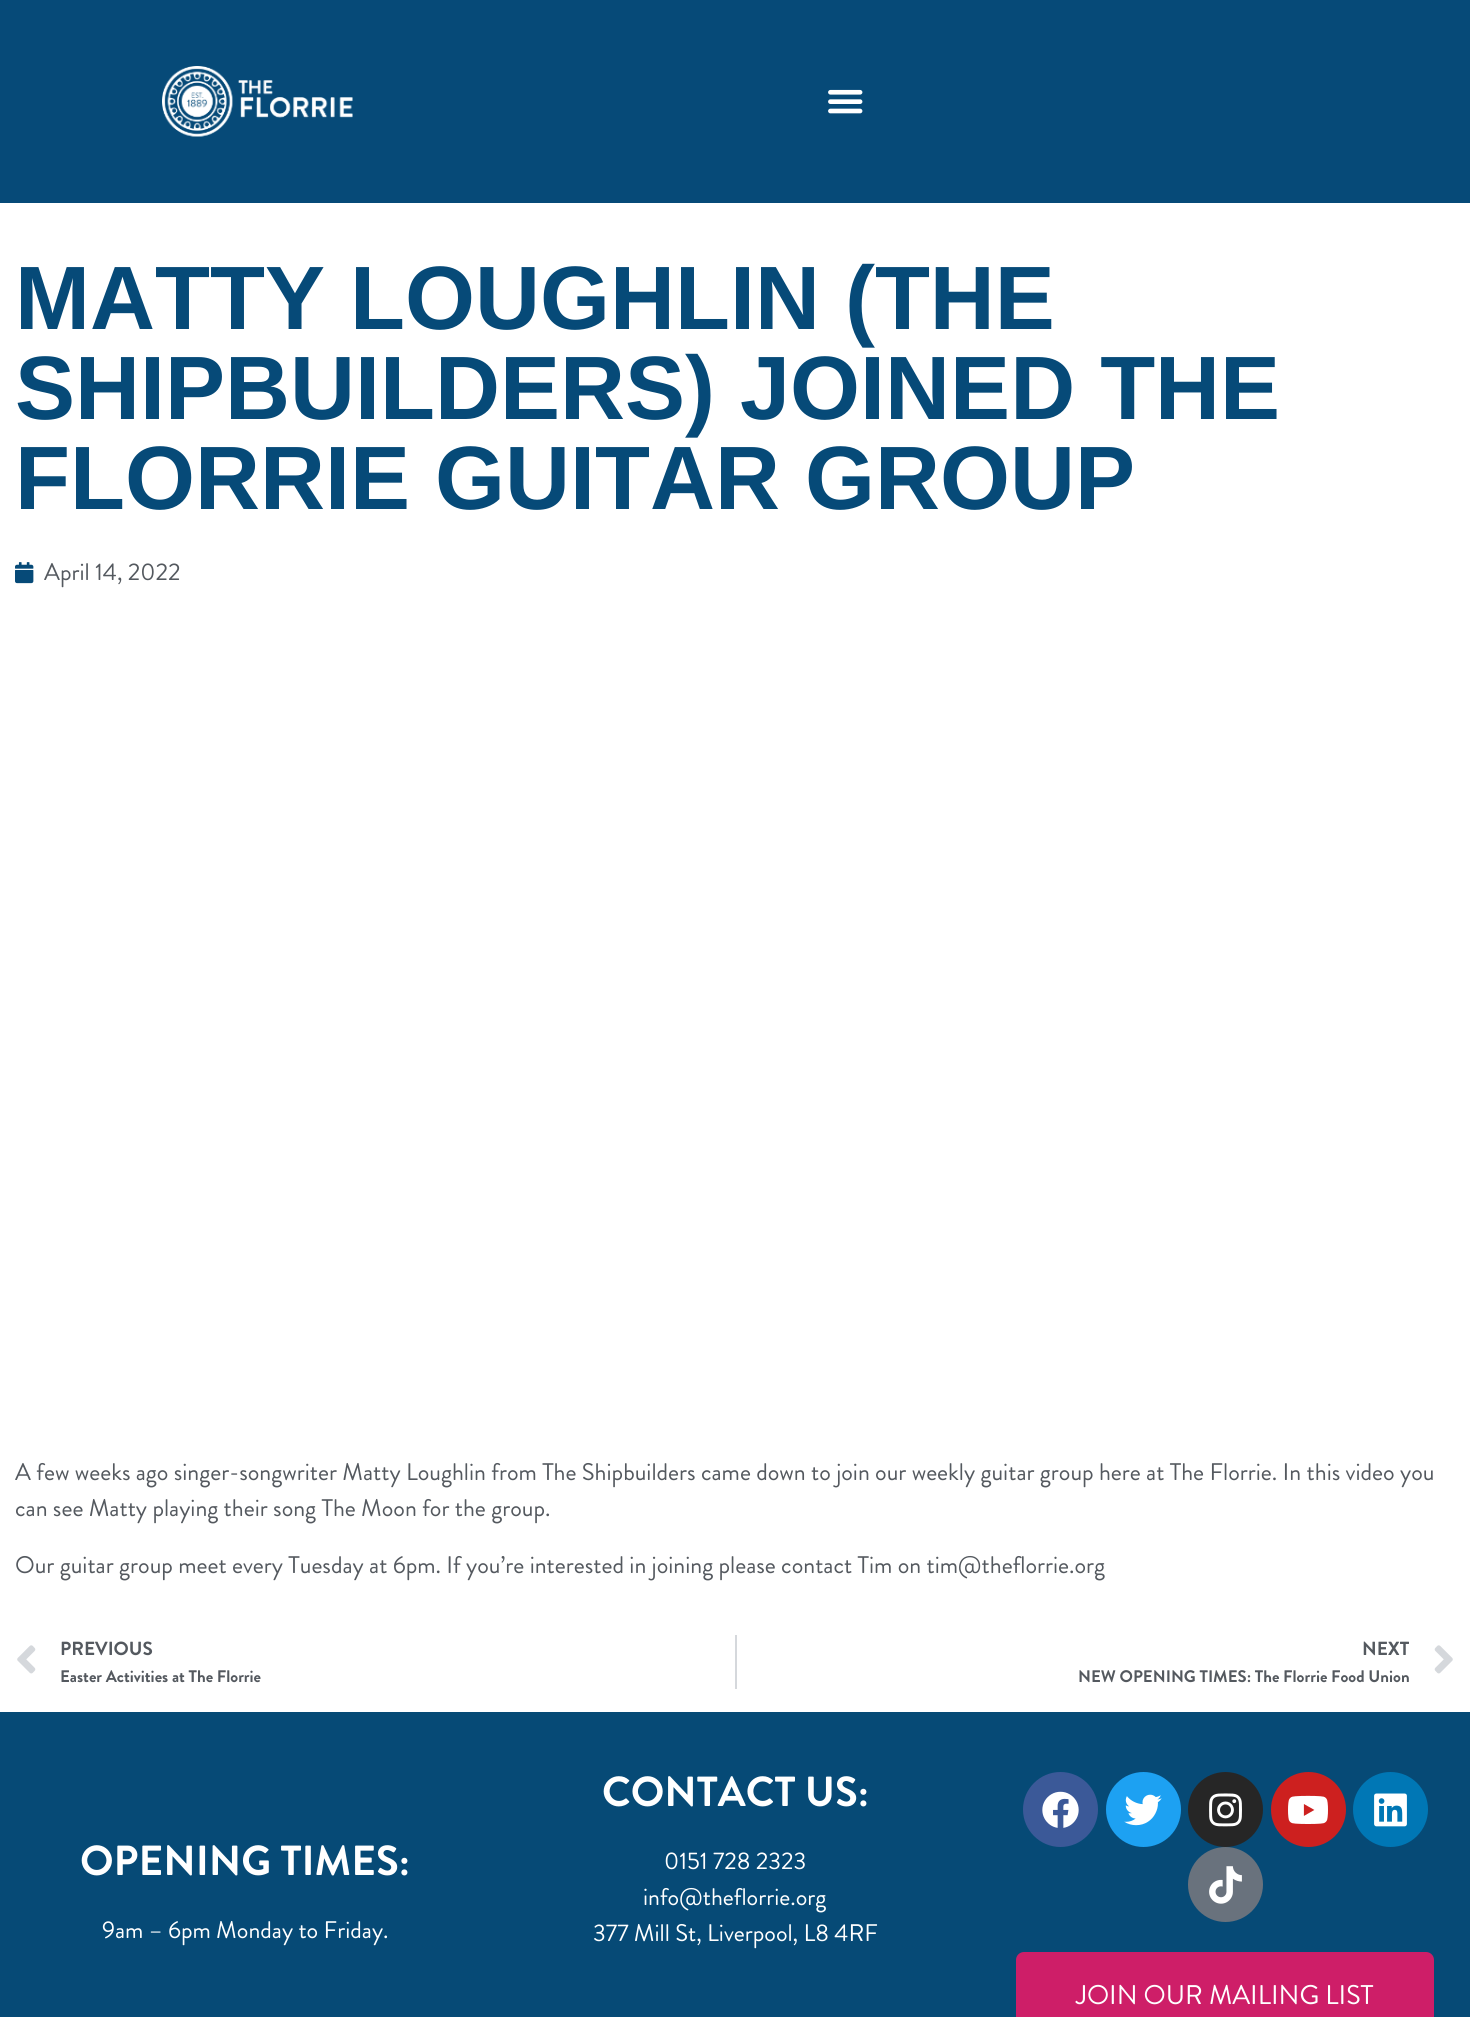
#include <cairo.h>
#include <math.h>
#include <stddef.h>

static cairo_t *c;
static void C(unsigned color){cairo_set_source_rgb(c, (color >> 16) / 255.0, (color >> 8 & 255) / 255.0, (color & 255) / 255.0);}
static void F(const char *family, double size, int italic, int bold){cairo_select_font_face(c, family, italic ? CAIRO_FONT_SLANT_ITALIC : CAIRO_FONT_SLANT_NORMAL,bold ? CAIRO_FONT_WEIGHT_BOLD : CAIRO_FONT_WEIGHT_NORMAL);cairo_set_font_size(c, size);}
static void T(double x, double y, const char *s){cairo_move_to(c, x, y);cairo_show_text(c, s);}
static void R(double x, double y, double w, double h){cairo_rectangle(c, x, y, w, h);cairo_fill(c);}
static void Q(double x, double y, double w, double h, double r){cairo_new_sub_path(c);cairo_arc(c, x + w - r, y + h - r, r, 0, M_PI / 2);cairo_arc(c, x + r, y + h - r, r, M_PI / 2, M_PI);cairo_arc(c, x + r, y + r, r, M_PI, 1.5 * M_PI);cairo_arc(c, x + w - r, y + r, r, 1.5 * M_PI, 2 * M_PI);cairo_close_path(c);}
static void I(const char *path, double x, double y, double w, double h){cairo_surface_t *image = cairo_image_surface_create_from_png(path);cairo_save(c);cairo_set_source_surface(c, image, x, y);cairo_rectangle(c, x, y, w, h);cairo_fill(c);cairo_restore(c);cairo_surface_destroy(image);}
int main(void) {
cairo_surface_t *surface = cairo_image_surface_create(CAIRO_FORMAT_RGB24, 1470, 2017);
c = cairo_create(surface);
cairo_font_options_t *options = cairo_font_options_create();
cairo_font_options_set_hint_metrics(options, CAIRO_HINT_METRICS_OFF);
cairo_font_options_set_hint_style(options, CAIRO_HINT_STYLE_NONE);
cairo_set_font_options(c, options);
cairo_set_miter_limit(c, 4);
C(0xffffff);
cairo_paint(c);
C(0x064a78);
R(0,0,1470,203);
I("1.png",162,66,191,71);
I("2.png",828,89,35,25);
F("Liberation Sans",90,0,1);
T(15,329,"MATTY LOUGHLIN (THE");
T(15,419,"SHIPBUILDERS) JOINED THE");
T(15,509,"FLORRIE GUITAR GROUP");
I("3.png",15,562,19,22);
F("Brandon Grotesque",24,0,0);
C(0x54595f);
T(44,580,"April 14, 2022");
T(15,1480,"A few weeks ago singer-songwriter Matty Loughlin from The Shipbuilders came down to join our weekly guitar group here at The Florrie. In this video you");
T(15,1516,"can see Matty playing their song The Moon for the group.");
T(15,1573,"Our guitar group meet every Tuesday at 6pm. If you’re interested in joining please contact Tim on tim@theflorrie.org");
I("4.png",17,1645,19,29);
F("Brandon Grotesque",19,0,1);
T(60,1655,"PREVIOUS");
F("Brandon Grotesque",16.75,0,1);
T(60,1682,"Easter Activities at The Florrie");
C(0xd5d8dc);
R(735,1635,2,54);
F("Brandon Grotesque",19,0,1);
C(0x54595f);
T(1362,1655,"NEXT");
F("Brandon Grotesque",16.75,0,1);
T(1078,1682,"NEW OPENING TIMES: The Florrie Food Union");
I("5.png",1434,1645,19,29);
C(0x064a76);
R(0,1712,1470,305);
F("Brandon Grotesque",42,0,1);
C(0xffffff);
T(80,1875,"OPENING TIMES:");
F("Brandon Grotesque",24,0,0);
T(102,1938,"9am – 6pm Monday to Friday.");
F("Brandon Grotesque",42,0,1);
T(602,1806,"CONTACT US:");
F("Brandon Grotesque",24,0,0);
T(664,1869,"0151 728 2323");
T(643,1905,"info@theflorrie.org");
T(593,1941,"377 Mill St, Liverpool, L8 4RF");
C(0x3b5998);
cairo_new_path(c);
cairo_arc(c,1060.5,1809.5,37.5,0,2 * M_PI);
cairo_fill(c);
I("6.png",1042,1791,37,37);
C(0x1da1f2);
cairo_arc(c,1143.5,1809.5,37.5,0,2 * M_PI);
cairo_fill(c);
I("7.png",1124,1794,38,32);
C(0x262626);
cairo_arc(c,1225.5,1809.5,37.5,0,2 * M_PI);
cairo_fill(c);
I("8.png",1209,1793,33,34);
C(0xcd201f);
cairo_arc(c,1308.5,1809.5,37.5,0,2 * M_PI);
cairo_fill(c);
I("9.png",1288,1795,40,29);
C(0x0077b5);
cairo_arc(c,1390.5,1809.5,37.5,0,2 * M_PI);
cairo_fill(c);
I("10.png",1374,1793,33,34);
C(0x69727d);
cairo_arc(c,1225.5,1884.5,37.5,0,2 * M_PI);
cairo_fill(c);
I("11.png",1209,1866,33,38);
C(0xce1e68);
Q(1016,1952,418,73,8);
cairo_fill(c);
F("Brandon Grotesque",27,0,0);
C(0xffffff);
T(1076,2004,"JOIN OUR MAILING LIST");
cairo_surface_write_to_png(surface, "o.png");
cairo_font_options_destroy(options);
cairo_destroy(c);
cairo_surface_destroy(surface);
return 0;
}
